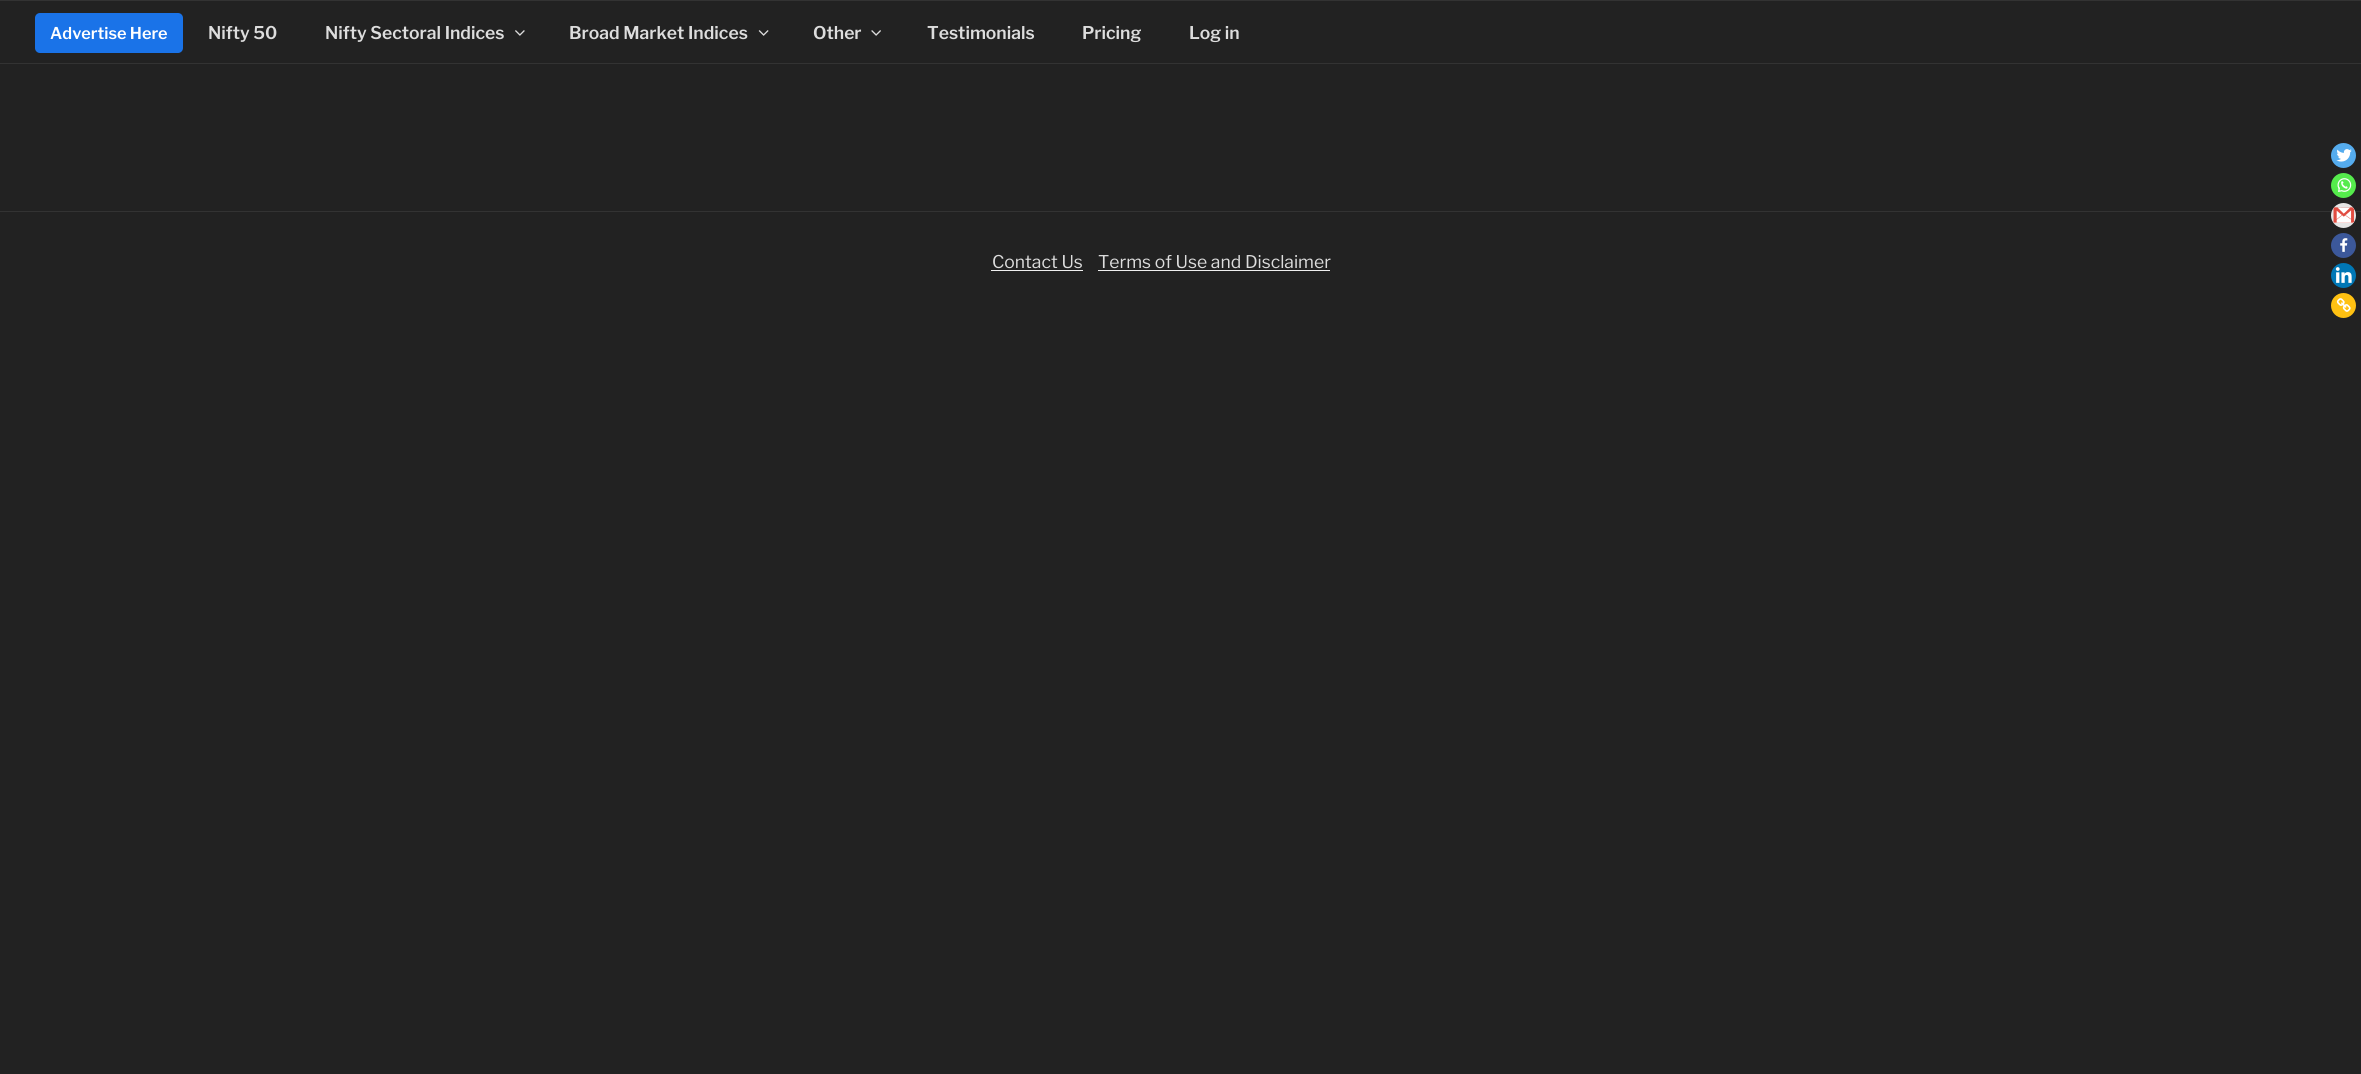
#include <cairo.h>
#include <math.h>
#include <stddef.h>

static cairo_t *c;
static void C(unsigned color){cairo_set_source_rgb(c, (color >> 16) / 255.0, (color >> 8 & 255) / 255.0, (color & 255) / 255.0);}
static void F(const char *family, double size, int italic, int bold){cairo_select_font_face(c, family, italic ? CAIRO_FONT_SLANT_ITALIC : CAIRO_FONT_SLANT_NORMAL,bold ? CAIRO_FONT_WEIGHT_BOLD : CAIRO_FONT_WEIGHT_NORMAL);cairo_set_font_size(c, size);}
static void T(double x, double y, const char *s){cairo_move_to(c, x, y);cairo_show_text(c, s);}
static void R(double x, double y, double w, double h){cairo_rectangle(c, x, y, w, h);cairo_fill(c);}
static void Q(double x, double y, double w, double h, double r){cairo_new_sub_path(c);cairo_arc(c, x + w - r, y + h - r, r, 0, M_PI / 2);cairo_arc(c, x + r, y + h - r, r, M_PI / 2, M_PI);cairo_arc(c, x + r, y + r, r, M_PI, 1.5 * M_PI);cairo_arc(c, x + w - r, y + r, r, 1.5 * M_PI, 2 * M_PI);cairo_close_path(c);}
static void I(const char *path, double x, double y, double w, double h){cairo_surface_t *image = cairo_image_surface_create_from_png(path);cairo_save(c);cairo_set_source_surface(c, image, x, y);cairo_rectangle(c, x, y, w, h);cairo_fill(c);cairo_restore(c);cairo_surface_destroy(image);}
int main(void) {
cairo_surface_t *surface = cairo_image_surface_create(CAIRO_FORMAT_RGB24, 2361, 1074);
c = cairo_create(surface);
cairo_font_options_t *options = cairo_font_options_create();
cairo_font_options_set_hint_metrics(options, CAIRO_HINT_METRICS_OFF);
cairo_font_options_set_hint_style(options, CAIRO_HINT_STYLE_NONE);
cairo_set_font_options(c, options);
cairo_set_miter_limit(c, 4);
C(0x222222);
cairo_paint(c);
C(0x333333);
R(0,0,2361,1);
R(0,63,2361,1);
C(0x1a73e8);
Q(35,13,148,40,5);
cairo_fill(c);
F("Libre Franklin SemiBold",16.25,0,0);
C(0xffffff);
T(50,39,"Advertise Here");
F("Libre Franklin SemiBold",17.5,0,0);
C(0xdddddd);
T(208,39,"Nifty 50");
T(325,39,"Nifty Sectoral Indices");
I("1.png",515,30,10,6);
T(569,39,"Broad Market Indices");
I("2.png",758,30,11,6);
T(813,39,"Other");
I("3.png",871,30,10,6);
T(927,39,"Testimonials");
T(1082,39,"Pricing");
T(1189,39,"Log in");
C(0x333333);
R(0,211,2361,1);
F("Libre Franklin",17.5,0,0);
C(0xdddddd);
T(992,268,"Contact Us");
C(0xf0f0f0);
R(991,270,92,1);
C(0xdddddd);
T(1098,268,"Terms of Use and Disclaimer");
C(0xf0f0f0);
R(1098,270,232,1);
C(0x55acee);
cairo_new_path(c);
cairo_arc(c,2343.5,155.5,12.5,0,2 * M_PI);
cairo_fill(c);
I("4.png",2336,149,16,13);
C(0x55eb4c);
cairo_arc(c,2343.5,185.5,12.5,0,2 * M_PI);
cairo_fill(c);
I("5.png",2337,178,15,14);
C(0xe5e5e5);
cairo_arc(c,2343.5,215.5,12.5,0,2 * M_PI);
cairo_fill(c);
I("6.png",2333,207,21,16);
C(0x3c589a);
cairo_arc(c,2343.5,245.5,12.5,0,2 * M_PI);
cairo_fill(c);
I("7.png",2340,238,8,14);
C(0x0077b5);
cairo_arc(c,2343.5,275.5,12.5,0,2 * M_PI);
cairo_fill(c);
I("8.png",2335,267,17,16);
C(0xffc112);
cairo_arc(c,2343.5,305.5,12.5,0,2 * M_PI);
cairo_fill(c);
I("9.png",2336,298,15,14);
cairo_surface_write_to_png(surface, "o.png");
cairo_font_options_destroy(options);
cairo_destroy(c);
cairo_surface_destroy(surface);
return 0;
}
